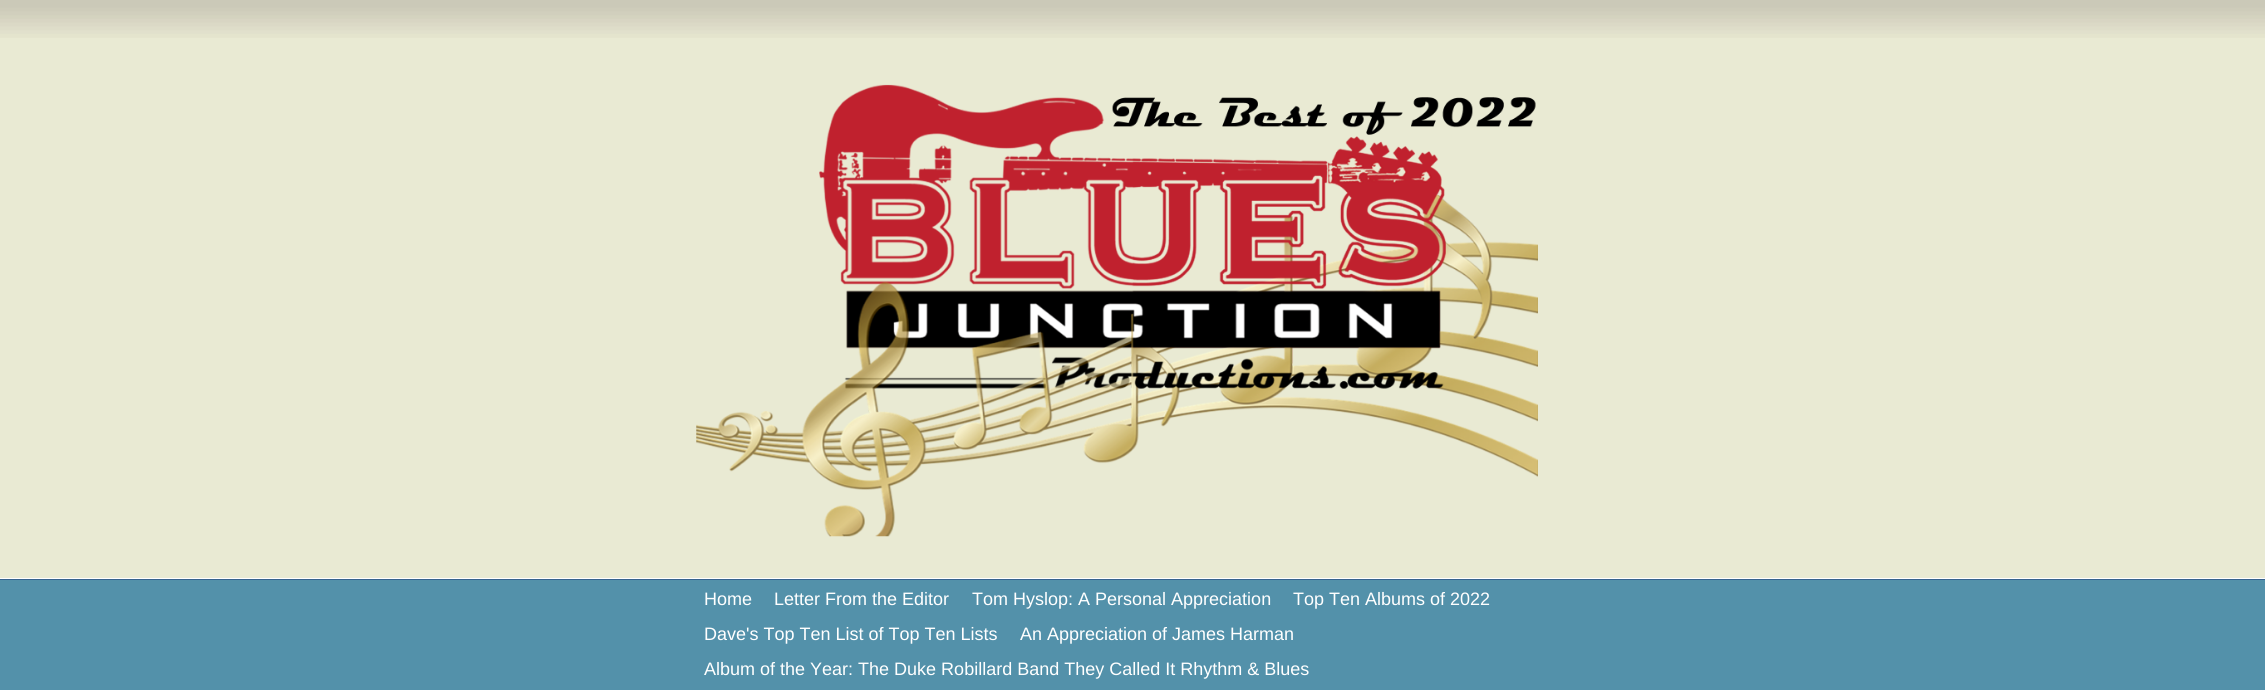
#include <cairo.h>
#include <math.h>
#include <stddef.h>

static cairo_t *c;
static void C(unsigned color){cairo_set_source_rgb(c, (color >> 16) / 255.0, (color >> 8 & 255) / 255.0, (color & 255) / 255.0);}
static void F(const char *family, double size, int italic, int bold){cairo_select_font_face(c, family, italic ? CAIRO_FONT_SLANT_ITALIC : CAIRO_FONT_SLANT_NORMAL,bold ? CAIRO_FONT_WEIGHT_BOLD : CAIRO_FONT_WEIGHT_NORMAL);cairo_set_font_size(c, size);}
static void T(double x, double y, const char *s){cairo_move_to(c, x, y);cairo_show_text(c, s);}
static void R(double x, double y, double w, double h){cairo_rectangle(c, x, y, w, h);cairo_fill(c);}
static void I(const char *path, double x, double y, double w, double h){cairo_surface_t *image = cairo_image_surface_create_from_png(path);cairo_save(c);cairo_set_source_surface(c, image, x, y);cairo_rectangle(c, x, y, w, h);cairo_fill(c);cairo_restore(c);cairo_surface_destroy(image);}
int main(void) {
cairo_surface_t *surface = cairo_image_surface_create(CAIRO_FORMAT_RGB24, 2265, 690);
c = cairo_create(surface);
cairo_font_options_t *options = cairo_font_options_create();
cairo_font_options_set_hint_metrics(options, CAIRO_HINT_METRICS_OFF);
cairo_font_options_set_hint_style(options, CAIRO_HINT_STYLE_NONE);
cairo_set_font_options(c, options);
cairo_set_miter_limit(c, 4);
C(0xe9ead3);
cairo_paint(c);
I("1.png",0,0,2265,38);
C(0xffffff);
R(0,578,2265,1);
I("2.png",696,84,842,453);
C(0x5391aa);
R(0,580,2265,110);
C(0x37628f);
R(0,579,2265,1);
F("Liberation Sans",18,0,0);
C(0xffffff);
T(704,605,"Home");
T(774,605,"Letter From the Editor");
T(972,605,"Tom Hyslop: A Personal Appreciation");
T(1293,605,"Top Ten Albums of 2022");
T(704,640,"Dave's Top Ten List of Top Ten Lists");
T(1020,640,"An Appreciation of James Harman");
T(704,675,"Album of the Year: The Duke Robillard Band They Called It Rhythm & Blues");
cairo_surface_write_to_png(surface, "o.png");
cairo_font_options_destroy(options);
cairo_destroy(c);
cairo_surface_destroy(surface);
return 0;
}
